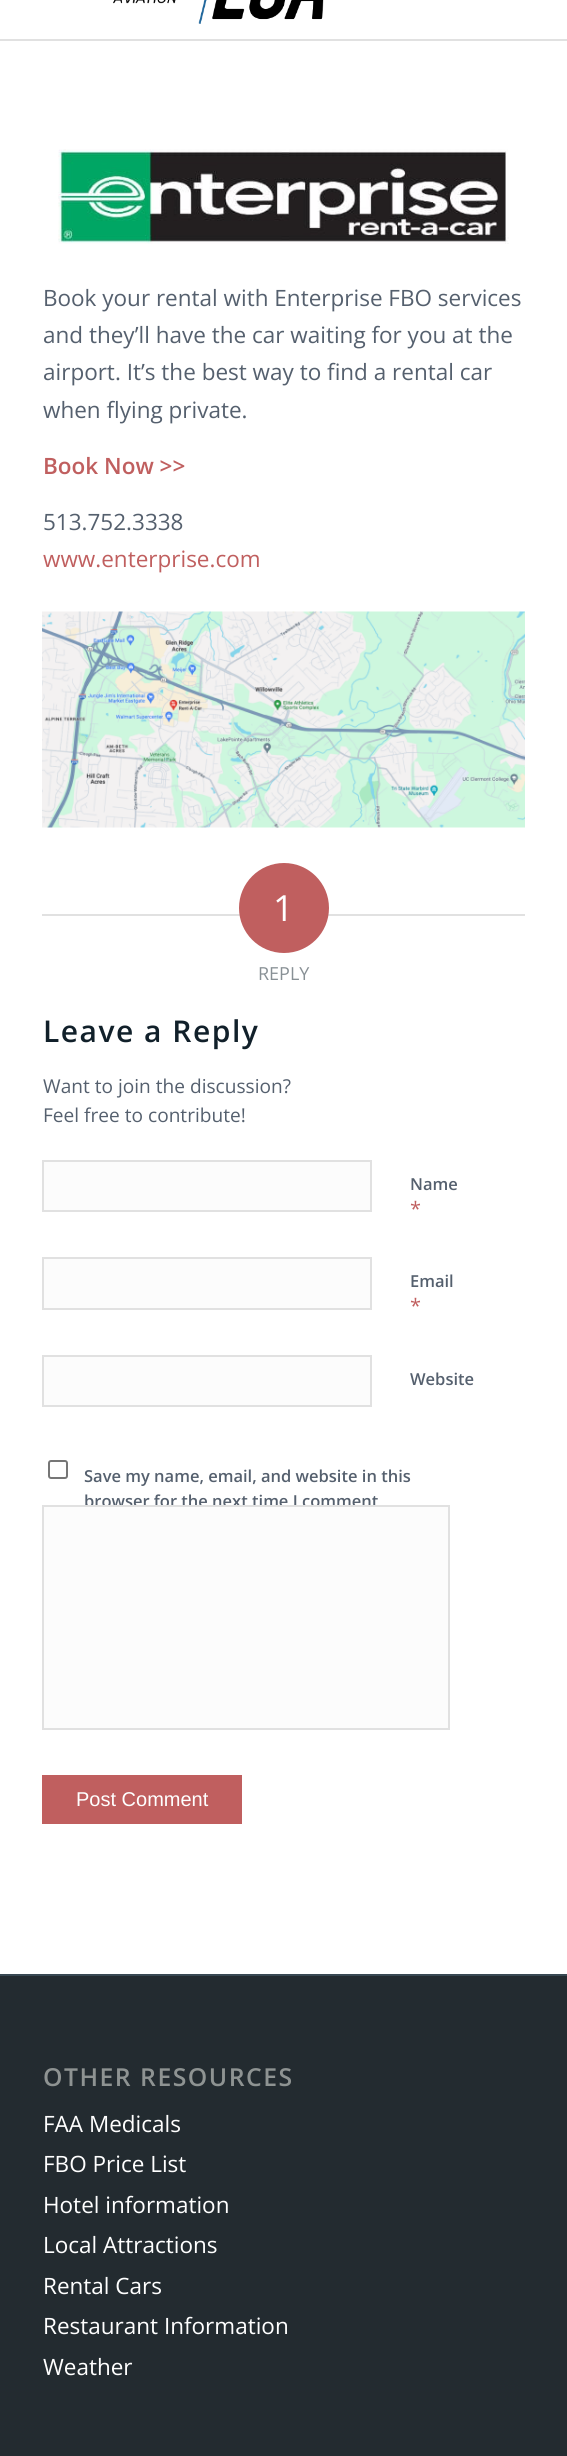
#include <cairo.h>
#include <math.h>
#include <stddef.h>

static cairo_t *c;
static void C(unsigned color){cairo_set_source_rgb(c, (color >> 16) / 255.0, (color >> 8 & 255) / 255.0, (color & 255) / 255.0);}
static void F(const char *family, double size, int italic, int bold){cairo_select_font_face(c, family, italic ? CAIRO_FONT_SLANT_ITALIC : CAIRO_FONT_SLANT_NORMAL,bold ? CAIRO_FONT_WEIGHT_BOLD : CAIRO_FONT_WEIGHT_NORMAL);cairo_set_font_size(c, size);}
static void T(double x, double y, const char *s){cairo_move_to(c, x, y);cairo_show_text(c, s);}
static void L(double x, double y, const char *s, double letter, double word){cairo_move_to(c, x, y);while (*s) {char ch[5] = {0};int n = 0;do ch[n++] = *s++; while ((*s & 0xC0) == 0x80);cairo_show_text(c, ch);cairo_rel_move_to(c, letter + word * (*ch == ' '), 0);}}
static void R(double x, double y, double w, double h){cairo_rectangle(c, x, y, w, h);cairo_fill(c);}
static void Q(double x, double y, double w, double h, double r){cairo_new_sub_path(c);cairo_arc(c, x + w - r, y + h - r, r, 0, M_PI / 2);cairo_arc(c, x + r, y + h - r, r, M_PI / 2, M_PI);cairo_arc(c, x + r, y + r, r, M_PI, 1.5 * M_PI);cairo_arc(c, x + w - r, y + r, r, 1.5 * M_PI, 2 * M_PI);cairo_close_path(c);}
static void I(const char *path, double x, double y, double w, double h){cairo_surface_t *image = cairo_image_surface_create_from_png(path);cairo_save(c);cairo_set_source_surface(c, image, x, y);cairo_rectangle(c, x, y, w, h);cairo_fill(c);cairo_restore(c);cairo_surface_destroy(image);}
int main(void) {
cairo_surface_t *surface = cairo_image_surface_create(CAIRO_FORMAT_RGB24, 567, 2456);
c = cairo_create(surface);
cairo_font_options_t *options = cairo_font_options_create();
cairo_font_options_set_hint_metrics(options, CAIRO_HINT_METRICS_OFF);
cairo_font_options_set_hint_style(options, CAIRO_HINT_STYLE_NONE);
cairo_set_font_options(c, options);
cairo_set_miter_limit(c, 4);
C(0xffffff);
cairo_paint(c);
C(0xe1e1e1);
R(0,39,567,2);
I("1.png",113,0,211,24);
I("2.png",58,149,451,95);
F("Open Sans",22.5,0,0);
C(0x55606e);
T(43,306,"Book your rental with Enterprise FBO services");
T(43,343,"and they’ll have the car waiting for you at the");
T(43,380,"airport. It’s the best way to find a rental car");
T(43,418,"when flying private.");
F("Open Sans SemiBold",22.5,0,0);
C(0xc05f5f);
T(43,474,"Book Now >>");
F("Open Sans",22.5,0,0);
C(0x55606e);
T(43,530,"513.752.3338");
C(0xc05f5f);
T(43,567,"www.enterprise.com");
I("3.png",42,611,483,217);
C(0xe1e1e1);
R(42,914,203,2);
R(323,914,202,2);
C(0xc05f5f);
cairo_arc(c,284,908,45,0,2 * M_PI);
cairo_fill(c);
F("Open Sans",36,0,0);
C(0xffffff);
T(273,921,"1");
F("Open Sans",18,0,0);
C(0x889095);
T(258,980,"REPLY");
F("Open Sans SemiBold",30,0,0);
C(0x11202a);
L(43,1042,"Leave a Reply",1.5,0);
F("Open Sans",19.1,0,0);
C(0x55606e);
T(43,1093,"Want to join the discussion?");
T(43,1122,"Feel free to contribute!");
C(0xfcfcfc);
cairo_rectangle(c,43,1161,328,50);
cairo_fill_preserve(c);
C(0xe1e1e1);
cairo_stroke(c);
F("Open Sans SemiBold",16.5,0,0);
C(0x55606e);
T(410,1190,"Name");
F("Open Sans",20,0,0);
C(0xc05f5f);
T(410,1216,"*");
C(0xfcfcfc);
cairo_rectangle(c,43,1258,328,51);
cairo_fill_preserve(c);
C(0xe1e1e1);
cairo_stroke(c);
F("Open Sans SemiBold",16.5,0,0);
C(0x55606e);
T(410,1287,"Email");
F("Open Sans",20,0,0);
C(0xc05f5f);
T(410,1313,"*");
C(0xfcfcfc);
cairo_rectangle(c,43,1356,328,50);
cairo_fill_preserve(c);
C(0xe1e1e1);
cairo_stroke(c);
F("Open Sans SemiBold",16.5,0,0);
C(0x55606e);
T(410,1385,"Website");
Q(49,1461,18,17,2);
C(0x767676);
cairo_stroke(c);
C(0x55606e);
T(84,1482,"Save my name, email, and website in this");
T(84,1507,"browser for the next time I comment");
C(0xfcfcfc);
cairo_rectangle(c,43,1506,406,223);
cairo_fill_preserve(c);
C(0xe1e1e1);
cairo_stroke(c);
C(0xc05f5f);
R(42,1775,200,49);
F("Liberation Sans",20,0,0);
C(0xffffff);
T(76,1806,"Post Comment");
C(0x232b30);
R(0,1976,567,480);
C(0x384852);
R(0,1974,567,2);
F("Open Sans SemiBold",24.75,0,0);
C(0x8e9392);
L(43,2086,"OTHER RESOURCES",1.5,0);
F("Open Sans",22.5,0,0);
C(0xffffff);
T(43,2132,"FAA Medicals");
T(43,2172,"FBO Price List");
T(43,2213,"Hotel information");
T(43,2253,"Local Attractions");
T(43,2294,"Rental Cars");
T(43,2334,"Restaurant Information");
T(43,2375,"Weather");
cairo_surface_write_to_png(surface, "o.png");
cairo_font_options_destroy(options);
cairo_destroy(c);
cairo_surface_destroy(surface);
return 0;
}
